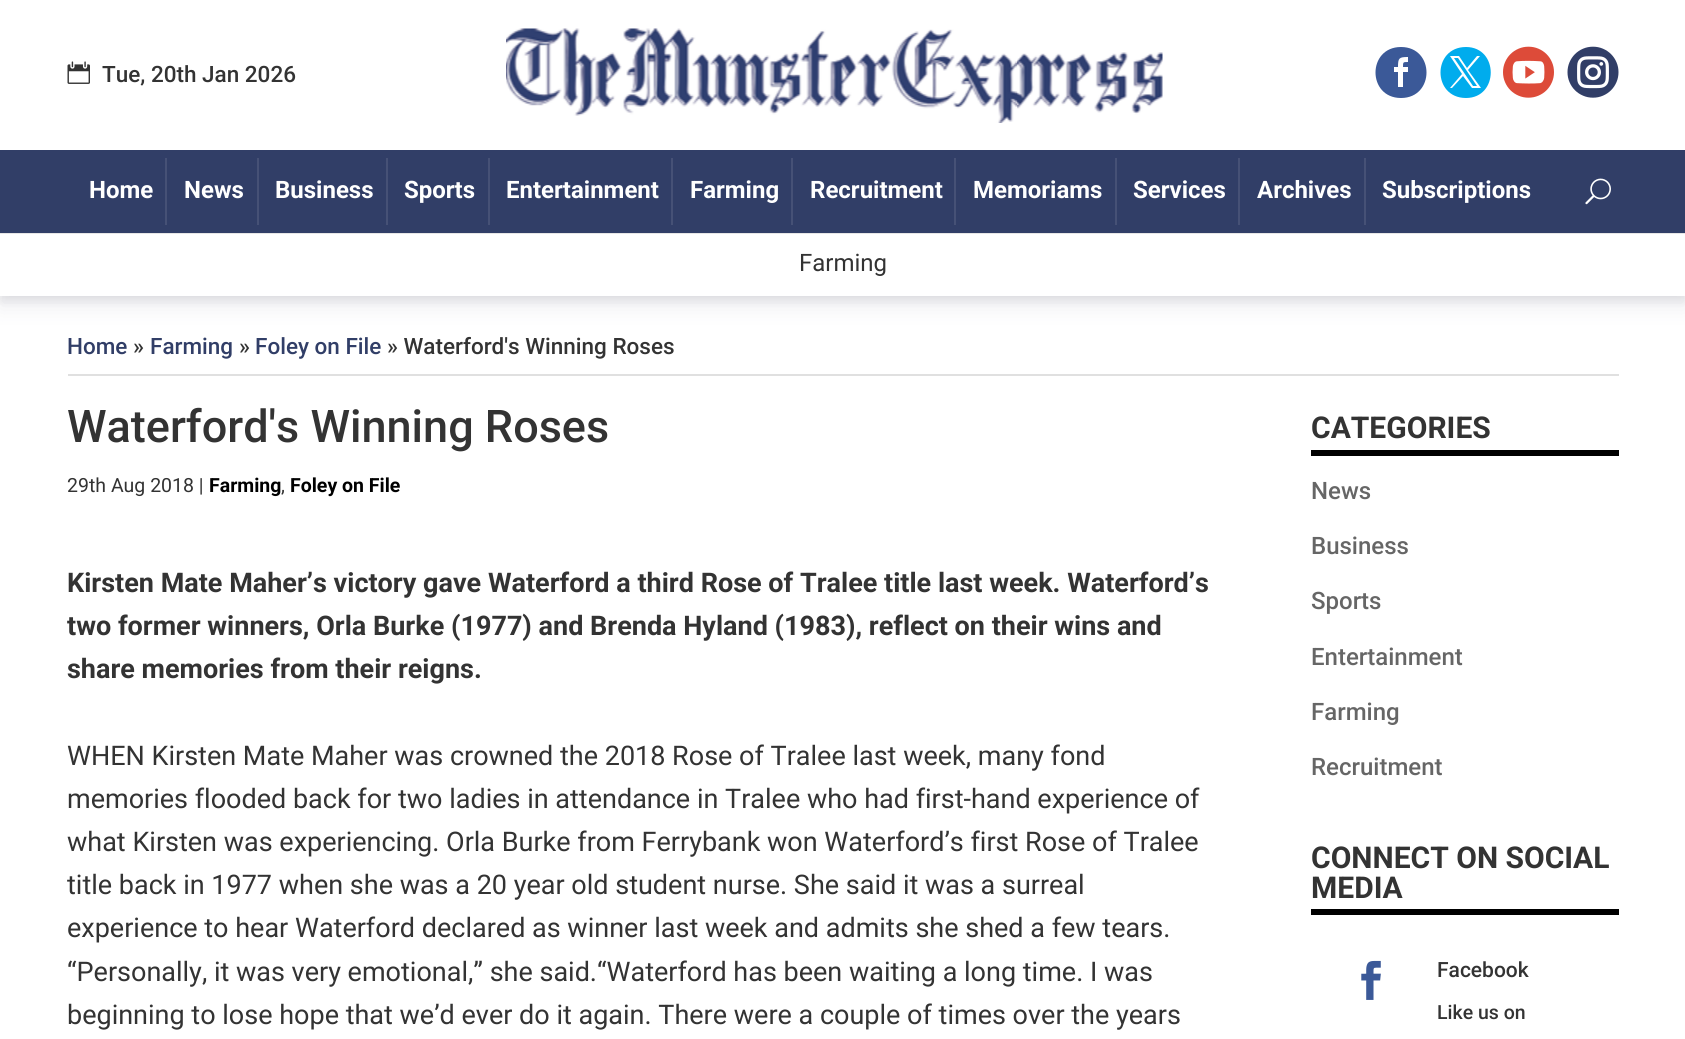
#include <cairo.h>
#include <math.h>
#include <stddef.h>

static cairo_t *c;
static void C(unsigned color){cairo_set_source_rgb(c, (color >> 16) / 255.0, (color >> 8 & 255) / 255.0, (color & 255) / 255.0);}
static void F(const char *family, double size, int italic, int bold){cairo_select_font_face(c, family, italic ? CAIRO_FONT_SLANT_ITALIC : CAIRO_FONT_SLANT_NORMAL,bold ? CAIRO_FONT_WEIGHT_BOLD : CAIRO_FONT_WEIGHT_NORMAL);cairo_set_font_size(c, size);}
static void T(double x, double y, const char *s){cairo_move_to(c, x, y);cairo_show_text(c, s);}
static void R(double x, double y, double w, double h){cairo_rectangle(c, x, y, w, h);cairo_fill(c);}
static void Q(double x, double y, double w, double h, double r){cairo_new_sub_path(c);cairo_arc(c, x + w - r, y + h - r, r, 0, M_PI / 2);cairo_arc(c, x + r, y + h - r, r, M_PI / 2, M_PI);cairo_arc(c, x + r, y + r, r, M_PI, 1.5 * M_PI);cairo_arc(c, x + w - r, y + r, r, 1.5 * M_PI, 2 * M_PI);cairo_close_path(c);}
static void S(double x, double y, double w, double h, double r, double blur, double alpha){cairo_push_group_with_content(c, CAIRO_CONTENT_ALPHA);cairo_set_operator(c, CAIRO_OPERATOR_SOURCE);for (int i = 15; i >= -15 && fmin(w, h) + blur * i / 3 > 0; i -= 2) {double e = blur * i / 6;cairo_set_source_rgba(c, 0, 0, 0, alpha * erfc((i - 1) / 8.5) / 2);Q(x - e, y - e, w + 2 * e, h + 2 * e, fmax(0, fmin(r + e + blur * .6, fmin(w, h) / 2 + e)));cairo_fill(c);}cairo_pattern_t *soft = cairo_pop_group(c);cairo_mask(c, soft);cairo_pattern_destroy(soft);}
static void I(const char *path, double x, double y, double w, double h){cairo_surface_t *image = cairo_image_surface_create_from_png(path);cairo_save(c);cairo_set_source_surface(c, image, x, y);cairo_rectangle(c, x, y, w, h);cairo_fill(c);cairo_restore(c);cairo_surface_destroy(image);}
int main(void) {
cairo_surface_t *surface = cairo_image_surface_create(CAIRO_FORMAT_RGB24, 1685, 1039);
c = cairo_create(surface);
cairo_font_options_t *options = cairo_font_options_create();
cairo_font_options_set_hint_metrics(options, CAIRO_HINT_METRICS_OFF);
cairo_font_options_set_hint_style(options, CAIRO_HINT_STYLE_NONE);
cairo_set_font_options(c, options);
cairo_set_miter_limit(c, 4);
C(0xffffff);
cairo_paint(c);
cairo_save(c);
cairo_set_fill_rule(c,CAIRO_FILL_RULE_EVEN_ODD);
cairo_new_path(c);
cairo_move_to(c,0,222);
cairo_line_to(c,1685,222);
cairo_line_to(c,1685,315);
cairo_line_to(c,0,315);
cairo_close_path(c);
cairo_move_to(c,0,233);
cairo_line_to(c,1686,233);
cairo_line_to(c,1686,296);
cairo_line_to(c,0,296);
cairo_close_path(c);
cairo_clip(c);
C(0x000000);
S(0,237,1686,63,0,4.5,.08);
cairo_restore(c);
cairo_save(c);
cairo_set_fill_rule(c,CAIRO_FILL_RULE_EVEN_ODD);
cairo_new_path(c);
cairo_move_to(c,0,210);
cairo_line_to(c,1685,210);
cairo_line_to(c,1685,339);
cairo_line_to(c,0,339);
cairo_close_path(c);
cairo_move_to(c,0,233);
cairo_line_to(c,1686,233);
cairo_line_to(c,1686,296);
cairo_line_to(c,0,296);
cairo_close_path(c);
cairo_clip(c);
C(0x32325d);
S(0,243,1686,63,0,10.5,.1);
cairo_restore(c);
cairo_set_source_rgba(c,0,0,0,0.1);
R(0,233,1685,1);
I("1.png",67,61,23,23);
F("Roboto Medium",22.5,0,0);
C(0x333333);
T(102,82,"Tue, 20th Jan 2026");
I("2.png",506,28,657,95);
C(0x3b5998);
cairo_new_path(c);
cairo_move_to(c,1401,47);
cairo_curve_to(c,1367,47,1367,98,1401,98);
cairo_curve_to(c,1435,98,1435,47,1401,47);
cairo_close_path(c);
cairo_move_to(c,1408,72);
cairo_line_to(c,1403,72);
cairo_line_to(c,1403,87);
cairo_line_to(c,1398,87);
cairo_line_to(c,1398,72);
cairo_line_to(c,1394,72);
cairo_line_to(c,1394,67);
cairo_line_to(c,1398,67);
cairo_curve_to(c,1398,58,1399,57,1408,57);
cairo_line_to(c,1408,62);
cairo_curve_to(c,1403,62,1403,62,1403,67);
cairo_line_to(c,1408,67);
cairo_close_path(c);
cairo_fill(c);
C(0x00aced);
cairo_new_path(c);
cairo_move_to(c,1466,47);
cairo_curve_to(c,1432,47,1432,98,1466,98);
cairo_curve_to(c,1499,98,1499,47,1466,47);
cairo_close_path(c);
cairo_move_to(c,1472,88);
cairo_line_to(c,1463,76);
cairo_line_to(c,1452,88);
cairo_line_to(c,1450,88);
cairo_line_to(c,1462,74);
cairo_line_to(c,1450,56);
cairo_line_to(c,1459,56);
cairo_line_to(c,1467,68);
cairo_line_to(c,1477,56);
cairo_line_to(c,1480,56);
cairo_line_to(c,1468,70);
cairo_line_to(c,1481,88);
cairo_close_path(c);
cairo_move_to(c,1454,58);
cairo_line_to(c,1473,86);
cairo_line_to(c,1477,86);
cairo_line_to(c,1458,58);
cairo_close_path(c);
cairo_fill(c);
I("3.png",1503,46,51,52);
I("4.png",1567,46,52,52);
C(0x313e67);
R(0,150,1685,83);
C(0x465176);
R(165,158,2,67);
F("Roboto",24,0,1);
C(0xffffff);
T(89,198,"Home");
C(0x465176);
R(257,158,2,67);
C(0xffffff);
T(184,198,"News");
C(0x465176);
R(386,158,2,67);
C(0xffffff);
T(275,198,"Business");
C(0x465176);
R(488,158,2,67);
C(0xffffff);
T(404,198,"Sports");
C(0x465176);
R(671,158,2,67);
C(0xffffff);
T(506,198,"Entertainment");
C(0x465176);
R(791,158,2,67);
C(0xffffff);
T(690,198,"Farming");
C(0x465176);
R(954,158,2,67);
C(0xffffff);
T(810,198,"Recruitment");
C(0x465176);
R(1115,158,2,67);
C(0xffffff);
T(973,198,"Memoriams");
C(0x465176);
R(1238,158,2,67);
C(0xffffff);
T(1133,198,"Services");
C(0x465176);
R(1364,158,2,67);
C(0xffffff);
T(1257,198,"Archives");
T(1382,198,"Subscriptions");
I("5.png",1585,178,26,27);
F("Roboto",24,0,0);
C(0x333333);
T(799,271,"Farming");
C(0xe0e0e0);
R(68,374,1551,2);
F("Roboto Medium",22.5,0,0);
C(0x313e67);
T(67,354,"Home");
C(0x333333);
T(133,354,"»");
C(0x313e67);
T(150,354,"Farming");
C(0x333333);
T(239,354,"»");
C(0x313e67);
T(255,354,"Foley on File");
C(0x333333);
T(387,354,"» Waterford's Winning Roses");
F("Roboto Medium",45,0,0);
T(67,442,"Waterford's Winning Roses");
F("Roboto",19.5,0,0);
T(67,492,"29th Aug 2018 |");
F("Roboto",19.5,0,1);
C(0x000000);
T(209,492,"Farming");
F("Roboto",19.5,0,0);
C(0x333333);
T(281,492,",");
F("Roboto",19.5,0,1);
C(0x000000);
T(290,492,"Foley on File");
F("Roboto",27,0,1);
C(0x333333);
T(67,592,"Kirsten Mate Maher’s victory gave Waterford a third Rose of Tralee title last week. Waterford’s");
T(67,635,"two former winners, Orla Burke (1977) and Brenda Hyland (1983), reflect on their wins and");
T(67,678,"share memories from their reigns.");
F("Roboto",27,0,0);
T(67,765,"WHEN Kirsten Mate Maher was crowned the 2018 Rose of Tralee last week, many fond");
T(67,808,"memories flooded back for two ladies in attendance in Tralee who had first-hand experience of");
T(67,851,"what Kirsten was experiencing. Orla Burke from Ferrybank won Waterford’s first Rose of Tralee");
T(67,894,"title back in 1977 when she was a 20 year old student nurse. She said it was a surreal");
T(67,937,"experience to hear Waterford declared as winner last week and admits she shed a few tears.");
T(67,981,"“Personally, it was very emotional,” she said.“Waterford has been waiting a long time. I was");
T(67,1024,"beginning to lose hope that we’d ever do it again. There were a couple of times over the years");
C(0x000000);
R(1311,450,308,6);
F("Roboto",30,0,1);
C(0x333333);
T(1311,438,"CATEGORIES");
F("Roboto Medium",24,0,0);
C(0x666666);
T(1311,499,"News");
T(1311,554,"Business");
T(1311,609,"Sports");
T(1311,665,"Entertainment");
T(1311,720,"Farming");
T(1311,775,"Recruitment");
C(0x000000);
R(1311,909,308,6);
F("Roboto",30,0,1);
C(0x333333);
T(1311,868,"CONNECT ON SOCIAL");
T(1311,898,"MEDIA");
I("6.png",1361,960,20,40);
F("Roboto Medium",21,0,0);
T(1437,977,"Facebook");
F("Roboto Medium",19.5,0,0);
T(1437,1019,"Like us on");
cairo_surface_write_to_png(surface, "o.png");
cairo_font_options_destroy(options);
cairo_destroy(c);
cairo_surface_destroy(surface);
return 0;
}
